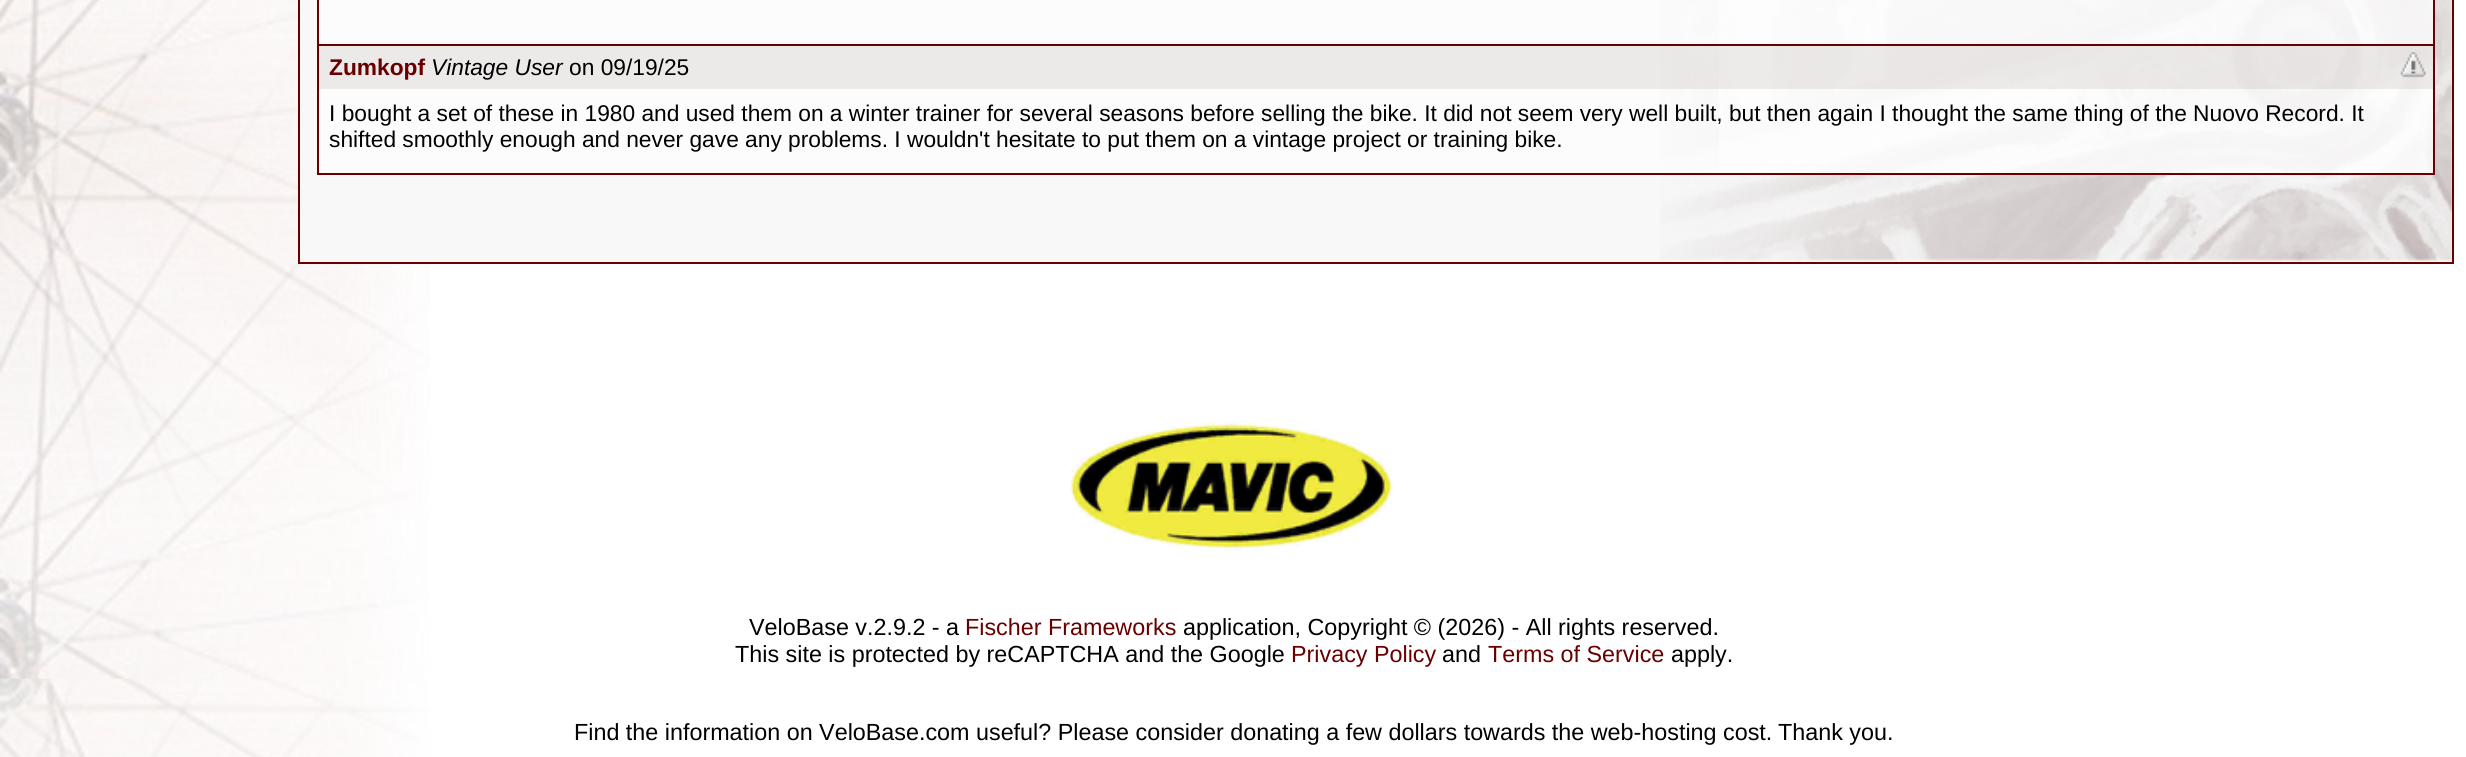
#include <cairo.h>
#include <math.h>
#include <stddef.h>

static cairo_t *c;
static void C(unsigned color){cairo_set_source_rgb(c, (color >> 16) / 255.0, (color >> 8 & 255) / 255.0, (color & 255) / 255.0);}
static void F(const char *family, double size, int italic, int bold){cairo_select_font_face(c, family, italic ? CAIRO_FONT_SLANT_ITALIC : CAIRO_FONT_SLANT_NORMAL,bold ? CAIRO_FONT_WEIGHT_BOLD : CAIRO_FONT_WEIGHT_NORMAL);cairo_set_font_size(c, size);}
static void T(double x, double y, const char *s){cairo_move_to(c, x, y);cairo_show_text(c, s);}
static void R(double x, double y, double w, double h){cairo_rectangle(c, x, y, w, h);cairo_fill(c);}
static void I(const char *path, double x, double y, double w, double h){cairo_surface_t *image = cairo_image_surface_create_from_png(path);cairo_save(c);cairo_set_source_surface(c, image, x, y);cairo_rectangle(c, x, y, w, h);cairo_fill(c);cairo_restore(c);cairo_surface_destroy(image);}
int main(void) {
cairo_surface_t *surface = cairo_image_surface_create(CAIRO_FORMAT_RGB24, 2466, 757);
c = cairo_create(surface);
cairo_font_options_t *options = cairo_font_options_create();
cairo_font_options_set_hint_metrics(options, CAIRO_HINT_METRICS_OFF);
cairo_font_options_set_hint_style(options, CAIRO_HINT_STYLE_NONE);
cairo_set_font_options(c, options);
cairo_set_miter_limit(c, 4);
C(0xffffff);
cairo_paint(c);
I("1.png",0,0,430,757);
C(0xf8f8f8);
R(300,0,2152,262);
I("2.png",1660,0,792,261);
cairo_rectangle(c,299,-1,2154,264);
C(0x680000);
cairo_stroke(c);
cairo_set_source_rgba(c,1,1,1,0.6);
R(319,0,2114,173);
cairo_set_source_rgba(c,1,1,1,0.5);
R(1719,0,714,173);
C(0x680000);
R(319,44,2115,2);
R(2433,0,2,175);
R(317,173,2117,2);
R(317,0,2,175);
cairo_set_source_rgba(c,0.306,0.216,0.216,0.09);
R(2217,46,216,43);
I("3.png",2400,52,26,26);
R(319,46,1898,43);
F("Liberation Sans",22.75,0,1);
C(0x680000);
T(329,75,"Zumkopf");
F("Liberation Sans",22.75,1,0);
C(0x000000);
T(431,75,"Vintage User");
F("Liberation Sans",22.75,0,0);
T(569,75,"on 09/19/25");
T(329,121,"I bought a set of these in 1980 and used them on a winter trainer for several seasons before selling the bike. It did not seem very well built, but then again I thought the same thing of the Nuovo Record. It");
T(329,147,"shifted smoothly enough and never gave any problems. I wouldn't hesitate to put them on a vintage project or training bike.");
I("4.png",1070,421,322,130);
F("Liberation Sans",23.33,0,0);
T(749,635,"VeloBase v.2.9.2 - a");
C(0x680000);
T(965,635,"Fischer Frameworks");
C(0x000000);
T(1183,635,"application, Copyright © (2026) - All rights reserved.");
T(735,662,"This site is protected by reCAPTCHA and the Google");
C(0x680000);
T(1291,662,"Privacy Policy");
C(0x000000);
T(1442,662,"and");
C(0x680000);
T(1488,662,"Terms of Service");
C(0x000000);
T(1671,662,"apply.");
T(574,740,"Find the information on VeloBase.com useful? Please consider donating a few dollars towards the web-hosting cost.");
T(1778,740,"Thank you.");
cairo_surface_write_to_png(surface, "o.png");
cairo_font_options_destroy(options);
cairo_destroy(c);
cairo_surface_destroy(surface);
return 0;
}
